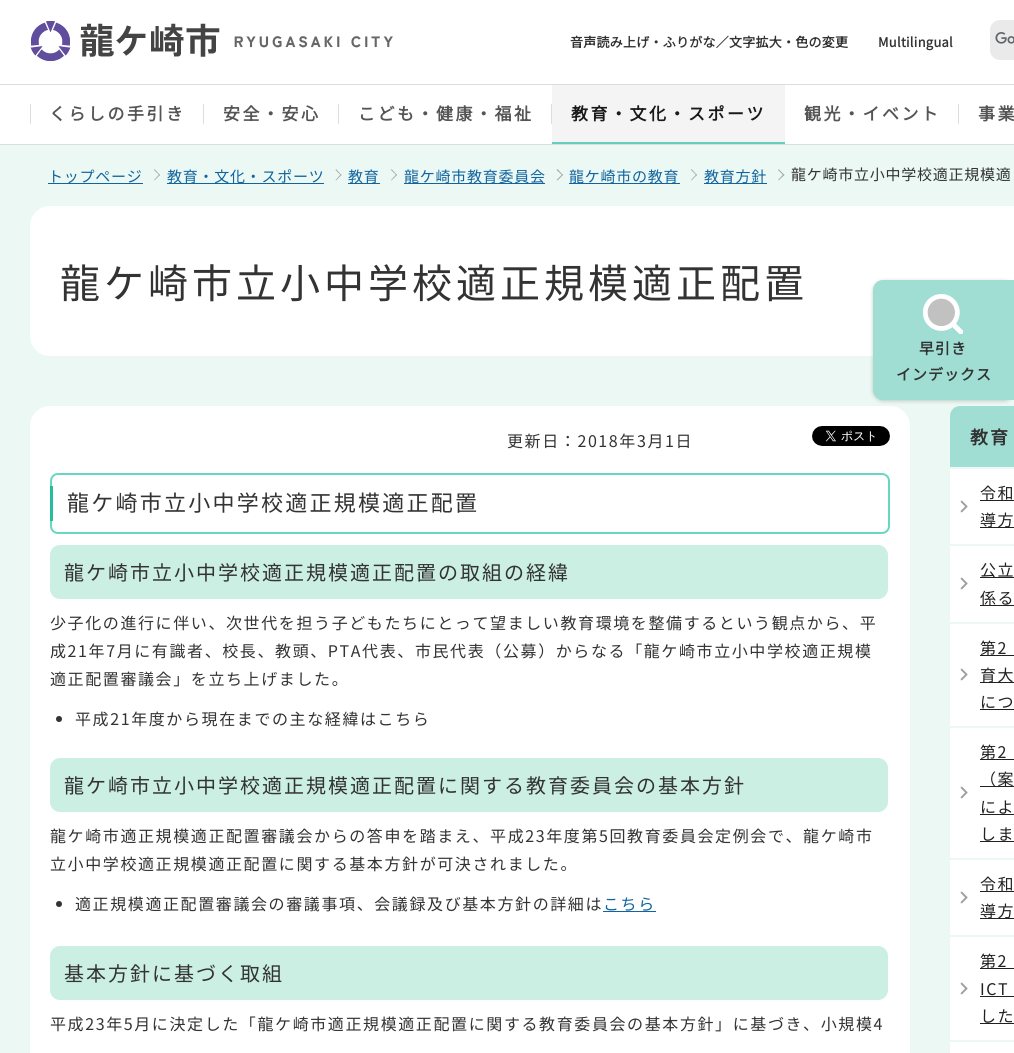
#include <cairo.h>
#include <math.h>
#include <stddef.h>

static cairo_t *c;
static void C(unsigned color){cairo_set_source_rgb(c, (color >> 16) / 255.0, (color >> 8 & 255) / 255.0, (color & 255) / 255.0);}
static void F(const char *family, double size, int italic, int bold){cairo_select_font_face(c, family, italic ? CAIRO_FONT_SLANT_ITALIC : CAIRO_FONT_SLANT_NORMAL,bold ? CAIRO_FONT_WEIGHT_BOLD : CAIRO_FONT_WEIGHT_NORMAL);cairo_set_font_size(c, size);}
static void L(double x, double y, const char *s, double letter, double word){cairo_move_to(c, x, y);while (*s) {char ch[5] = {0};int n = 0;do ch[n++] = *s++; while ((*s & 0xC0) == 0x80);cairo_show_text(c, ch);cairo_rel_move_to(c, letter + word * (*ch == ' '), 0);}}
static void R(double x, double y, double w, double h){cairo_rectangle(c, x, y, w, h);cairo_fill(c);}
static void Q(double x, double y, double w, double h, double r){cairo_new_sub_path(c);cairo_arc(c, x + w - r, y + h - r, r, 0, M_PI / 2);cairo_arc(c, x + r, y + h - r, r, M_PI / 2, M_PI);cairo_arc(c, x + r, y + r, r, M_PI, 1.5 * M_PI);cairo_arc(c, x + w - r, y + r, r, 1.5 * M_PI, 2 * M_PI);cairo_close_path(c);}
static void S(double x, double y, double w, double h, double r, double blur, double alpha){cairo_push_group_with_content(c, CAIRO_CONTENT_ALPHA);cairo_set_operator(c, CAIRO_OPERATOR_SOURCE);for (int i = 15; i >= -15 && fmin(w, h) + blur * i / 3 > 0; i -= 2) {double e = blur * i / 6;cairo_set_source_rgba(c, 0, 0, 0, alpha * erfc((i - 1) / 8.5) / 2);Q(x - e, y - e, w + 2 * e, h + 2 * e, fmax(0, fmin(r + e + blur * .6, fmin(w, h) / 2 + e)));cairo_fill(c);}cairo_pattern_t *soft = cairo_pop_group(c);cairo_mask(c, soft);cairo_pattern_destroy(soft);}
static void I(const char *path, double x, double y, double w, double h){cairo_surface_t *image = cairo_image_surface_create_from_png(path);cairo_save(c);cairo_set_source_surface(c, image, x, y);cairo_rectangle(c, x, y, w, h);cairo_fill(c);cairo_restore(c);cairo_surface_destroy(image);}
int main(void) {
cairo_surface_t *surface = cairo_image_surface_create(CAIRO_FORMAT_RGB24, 1014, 1053);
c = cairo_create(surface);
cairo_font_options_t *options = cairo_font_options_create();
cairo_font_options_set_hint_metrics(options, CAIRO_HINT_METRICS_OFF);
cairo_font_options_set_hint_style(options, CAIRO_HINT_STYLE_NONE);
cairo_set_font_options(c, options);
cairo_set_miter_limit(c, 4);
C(0xebf8f3);
cairo_paint(c);
C(0xffffff);
R(0,0,1014,144);
I("1.png",30,21,363,40);
F("Noto Sans JP",13,0,1);
C(0x333333);
L(570,47,"音声読み上げ・ふりがな／文字拡大・色の変更",.25,0);
L(878,47,"Multilingual",.25,0);
C(0xeaeaea);
cairo_new_path(c);
cairo_move_to(c,1000,20);
cairo_line_to(c,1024,20);
cairo_line_to(c,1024,60);
cairo_line_to(c,1000,60);
cairo_curve_to(c,994.5,60,990,55.5,990,50);
cairo_line_to(c,990,30);
cairo_curve_to(c,990,24.5,994.5,20,1000,20);
cairo_close_path(c);
cairo_fill(c);
I("2.png",995,32,19,12);
C(0xffffff);
Q(30,206,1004,150,20);
cairo_fill(c);
Q(30,406,880,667,20);
cairo_fill(c);
C(0xa0ded3);
cairo_new_path(c);
cairo_move_to(c,960,406);
cairo_line_to(c,1014,406);
cairo_curve_to(c,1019.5,406,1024,410.5,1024,416);
cairo_line_to(c,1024,469);
cairo_line_to(c,950,469);
cairo_line_to(c,950,416);
cairo_curve_to(c,950,410.5,954.5,406,960,406);
cairo_close_path(c);
cairo_fill(c);
C(0x000000);
S(873,281,141,120,10,2,.2);
C(0xa0ded3);
cairo_new_path(c);
cairo_move_to(c,883,280);
cairo_line_to(c,1014,280);
cairo_line_to(c,1014,400);
cairo_line_to(c,883,400);
cairo_curve_to(c,877.5,400,873,395.5,873,390);
cairo_line_to(c,873,290);
cairo_curve_to(c,873,284.5,877.5,280,883,280);
cairo_close_path(c);
cairo_fill(c);
I("3.png",923,294,40,40);
F("Noto Sans JP",15,0,1);
C(0x333333);
L(919,354,"早引き",1,0);
L(896,380,"インデックス",1,0);
C(0xdddddd);
R(0,84,1014,1);
R(0,144,1014,1);
R(30,104,1,20);
R(203,104,1,20);
F("Noto Sans JP",17,0,1);
C(0x555555);
L(49,120,"くらしの手引き",2.5,0);
C(0xdddddd);
R(338,104,1,20);
C(0x555555);
L(223,120,"安全・安心",2.5,0);
C(0xdddddd);
R(551,104,1,20);
C(0x555555);
L(358,120,"こども・健康・福祉",2.5,0);
C(0xf4f4f4);
R(552,85,233,57);
C(0x67cebb);
R(552,142,233,2);
C(0x1a1a1a);
L(571,120,"教育・文化・スポーツ",2.5,0);
C(0xdddddd);
R(958,104,1,20);
C(0x555555);
L(804,120,"観光・イベント",2.5,0);
L(978,120,"事業",2.5,0);
C(0x11649f);
R(48,183,95,1);
F("Noto Sans JP Thin",15,0,0);
L(48,182,"トップページ",.75,0);
C(0xaaaaaa);
cairo_new_path(c);
cairo_move_to(c,154.5,169);
cairo_line_to(c,160,175);
cairo_line_to(c,159.5,175.5);
cairo_line_to(c,154,170);
cairo_close_path(c);
cairo_fill(c);
cairo_new_path(c);
cairo_move_to(c,159.5,174);
cairo_line_to(c,160,175);
cairo_line_to(c,154.5,180.5);
cairo_line_to(c,154,180);
cairo_close_path(c);
cairo_fill(c);
C(0x11649f);
R(167,183,157,1);
L(167,182,"教育・文化・スポーツ",.75,0);
C(0xaaaaaa);
cairo_new_path(c);
cairo_move_to(c,336,169);
cairo_line_to(c,341.5,175);
cairo_line_to(c,341,175.5);
cairo_line_to(c,335.5,170);
cairo_close_path(c);
cairo_fill(c);
cairo_new_path(c);
cairo_move_to(c,341,174);
cairo_line_to(c,341.5,175);
cairo_line_to(c,336,180.5);
cairo_line_to(c,335.5,180);
cairo_close_path(c);
cairo_fill(c);
C(0x11649f);
R(348,183,32,1);
L(348,182,"教育",.75,0);
C(0xaaaaaa);
cairo_new_path(c);
cairo_move_to(c,391.5,169);
cairo_line_to(c,397,175);
cairo_line_to(c,396.5,175.5);
cairo_line_to(c,391,170);
cairo_close_path(c);
cairo_fill(c);
cairo_new_path(c);
cairo_move_to(c,396.5,174);
cairo_line_to(c,397,175);
cairo_line_to(c,391.5,180.5);
cairo_line_to(c,391,180);
cairo_close_path(c);
cairo_fill(c);
C(0x11649f);
R(404,183,141,1);
L(404,182,"龍ケ崎市教育委員会",.75,0);
C(0xaaaaaa);
cairo_new_path(c);
cairo_move_to(c,557.5,169);
cairo_line_to(c,563,175);
cairo_line_to(c,562.5,175.5);
cairo_line_to(c,556.5,170);
cairo_close_path(c);
cairo_fill(c);
cairo_new_path(c);
cairo_move_to(c,562.5,174);
cairo_line_to(c,563,175);
cairo_line_to(c,557.5,180.5);
cairo_line_to(c,556.5,180);
cairo_close_path(c);
cairo_fill(c);
C(0x11649f);
R(569,183,111,1);
L(569,182,"龍ケ崎市の教育",.75,0);
C(0xaaaaaa);
cairo_new_path(c);
cairo_move_to(c,691.5,169);
cairo_line_to(c,697,175);
cairo_line_to(c,696.5,175.5);
cairo_line_to(c,691,170);
cairo_close_path(c);
cairo_fill(c);
cairo_new_path(c);
cairo_move_to(c,696.5,174);
cairo_line_to(c,697,175);
cairo_line_to(c,691.5,180.5);
cairo_line_to(c,691,180);
cairo_close_path(c);
cairo_fill(c);
C(0x11649f);
R(704,183,63,1);
L(704,182,"教育方針",.75,0);
C(0xaaaaaa);
cairo_new_path(c);
cairo_move_to(c,778.5,169);
cairo_line_to(c,784.5,175);
cairo_line_to(c,783.5,175.5);
cairo_line_to(c,778,170);
cairo_close_path(c);
cairo_fill(c);
cairo_new_path(c);
cairo_move_to(c,783.5,174);
cairo_line_to(c,784.5,175);
cairo_line_to(c,778.5,180.5);
cairo_line_to(c,778,180);
cairo_close_path(c);
cairo_fill(c);
C(0x333333);
L(791,180,"龍ケ崎市立小中学校適正規模適",.75,0);
F("Noto Sans JP Thin",40,0,0);
L(60,298,"龍ケ崎市立小中学校適正規模適正配置",4,0);
F("Noto Sans JP Thin",16,0,0);
L(507,447,"更新日：2018年3月1日",1.6,0);
I("4.png",812,426,78,20);
Q(51,474,838,59,7);
C(0x66d8c2);
cairo_stroke(c);
C(0x26bc9f);
R(50,486,3,35);
F("Noto Sans JP Thin",22,0,0);
C(0x333333);
L(67,511,"龍ケ崎市立小中学校適正規模適正配置",2.25,0);
C(0xcbefe3);
Q(50,545,838,54,10);
cairo_fill(c);
F("Noto Sans JP Thin",20,0,0);
C(0x333333);
L(64,580,"龍ケ崎市立小中学校適正規模適正配置の取組の経緯",2,0);
F("Noto Sans JP Thin",16,0,0);
L(50,629,"少子化の進行に伴い、次世代を担う子どもたちにとって望ましい教育環境を整備するという観点から、平",1.6,0);
L(50,657,"成21年7月に有識者、校長、教頭、PTA代表、市民代表（公募）からなる「龍ケ崎市立小中学校適正規模",1.6,0);
L(50,685,"適正配置審議会」を立ち上げました。",1.6,0);
cairo_new_path(c);
cairo_arc(c,59,719,3,0,2 * M_PI);
cairo_fill(c);
L(75,725,"平成21年度から現在までの主な経緯はこちら",1.6,0);
C(0xcbefe3);
Q(50,758,838,54,10);
cairo_fill(c);
F("Noto Sans JP Thin",20,0,0);
C(0x333333);
L(64,793,"龍ケ崎市立小中学校適正規模適正配置に関する教育委員会の基本方針",2,0);
F("Noto Sans JP Thin",16,0,0);
L(50,842,"龍ケ崎市適正規模適正配置審議会からの答申を踏まえ、平成23年度第5回教育委員会定例会で、龍ケ崎市",1.6,0);
L(50,870,"立小中学校適正規模適正配置に関する基本方針が可決されました。",1.6,0);
cairo_new_path(c);
cairo_arc(c,59,904,3,0,2 * M_PI);
cairo_fill(c);
L(75,910,"適正規模適正配置審議会の審議事項、会議録及び基本方針の詳細は",1.6,0);
C(0x11649f);
L(603,910,"こちら",1.6,0);
R(603,911,53,1);
C(0xcbefe3);
Q(50,946,838,54,10);
cairo_fill(c);
F("Noto Sans JP Thin",20,0,0);
C(0x333333);
L(64,981,"基本方針に基づく取組",2,0);
F("Noto Sans JP Thin",16,0,0);
L(50,1030,"平成23年5月に決定した「龍ケ崎市適正規模適正配置に関する教育委員会の基本方針」に基づき、小規模4",1.6,0);
C(0xebf8f3);
R(950,467,64,2);
F("Noto Sans JP",18,0,1);
C(0x333333);
L(970,444,"教育",2,0);
C(0xffffff);
R(950,469,64,584);
C(0xebf8f3);
R(950,544,64,2);
I("5.png",960,500,8,13);
C(0x212121);
R(980,500,34,1);
F("Noto Sans JP Thin",16,0,0);
L(980,499,"令和",1.6,0);
R(980,527,34,1);
L(980,526,"導方",1.6,0);
C(0xebf8f3);
R(950,622,64,2);
I("5.png",960,577,8,13);
C(0x212121);
R(980,577,34,1);
L(980,576,"公立",1.6,0);
R(980,605,34,1);
L(980,604,"係る",1.6,0);
C(0xebf8f3);
R(950,726,64,2);
I("5.png",960,668,8,13);
C(0x212121);
R(980,655,34,1);
L(980,654,"第2",1.6,0);
R(980,682,34,1);
L(980,681,"育大",1.6,0);
L(980,708,"につ",1.6,0);
R(980,709,34,1);
C(0xebf8f3);
R(950,858,64,2);
I("5.png",960,786,8,13);
C(0x212121);
R(980,759,34,1);
L(980,758,"第2",1.6,0);
R(980,786,34,1);
L(980,785,"（案",1.6,0);
L(980,813,"によ",1.6,0);
R(980,814,34,1);
L(980,840,"しま",1.6,0);
R(980,841,34,1);
C(0xebf8f3);
R(950,935,64,2);
I("5.png",960,891,8,13);
C(0x212121);
R(980,891,34,1);
L(980,890,"令和",1.6,0);
R(980,918,34,1);
L(980,917,"導方",1.6,0);
C(0xebf8f3);
R(950,1040,64,2);
I("5.png",960,982,8,13);
C(0x212121);
R(980,968,34,1);
L(980,967,"第2",1.6,0);
L(980,995,"ICT",1.6,0);
R(980,996,34,1);
L(980,1022,"した",1.6,0);
R(980,1023,34,1);
cairo_surface_write_to_png(surface, "o.png");
cairo_font_options_destroy(options);
cairo_destroy(c);
cairo_surface_destroy(surface);
return 0;
}
